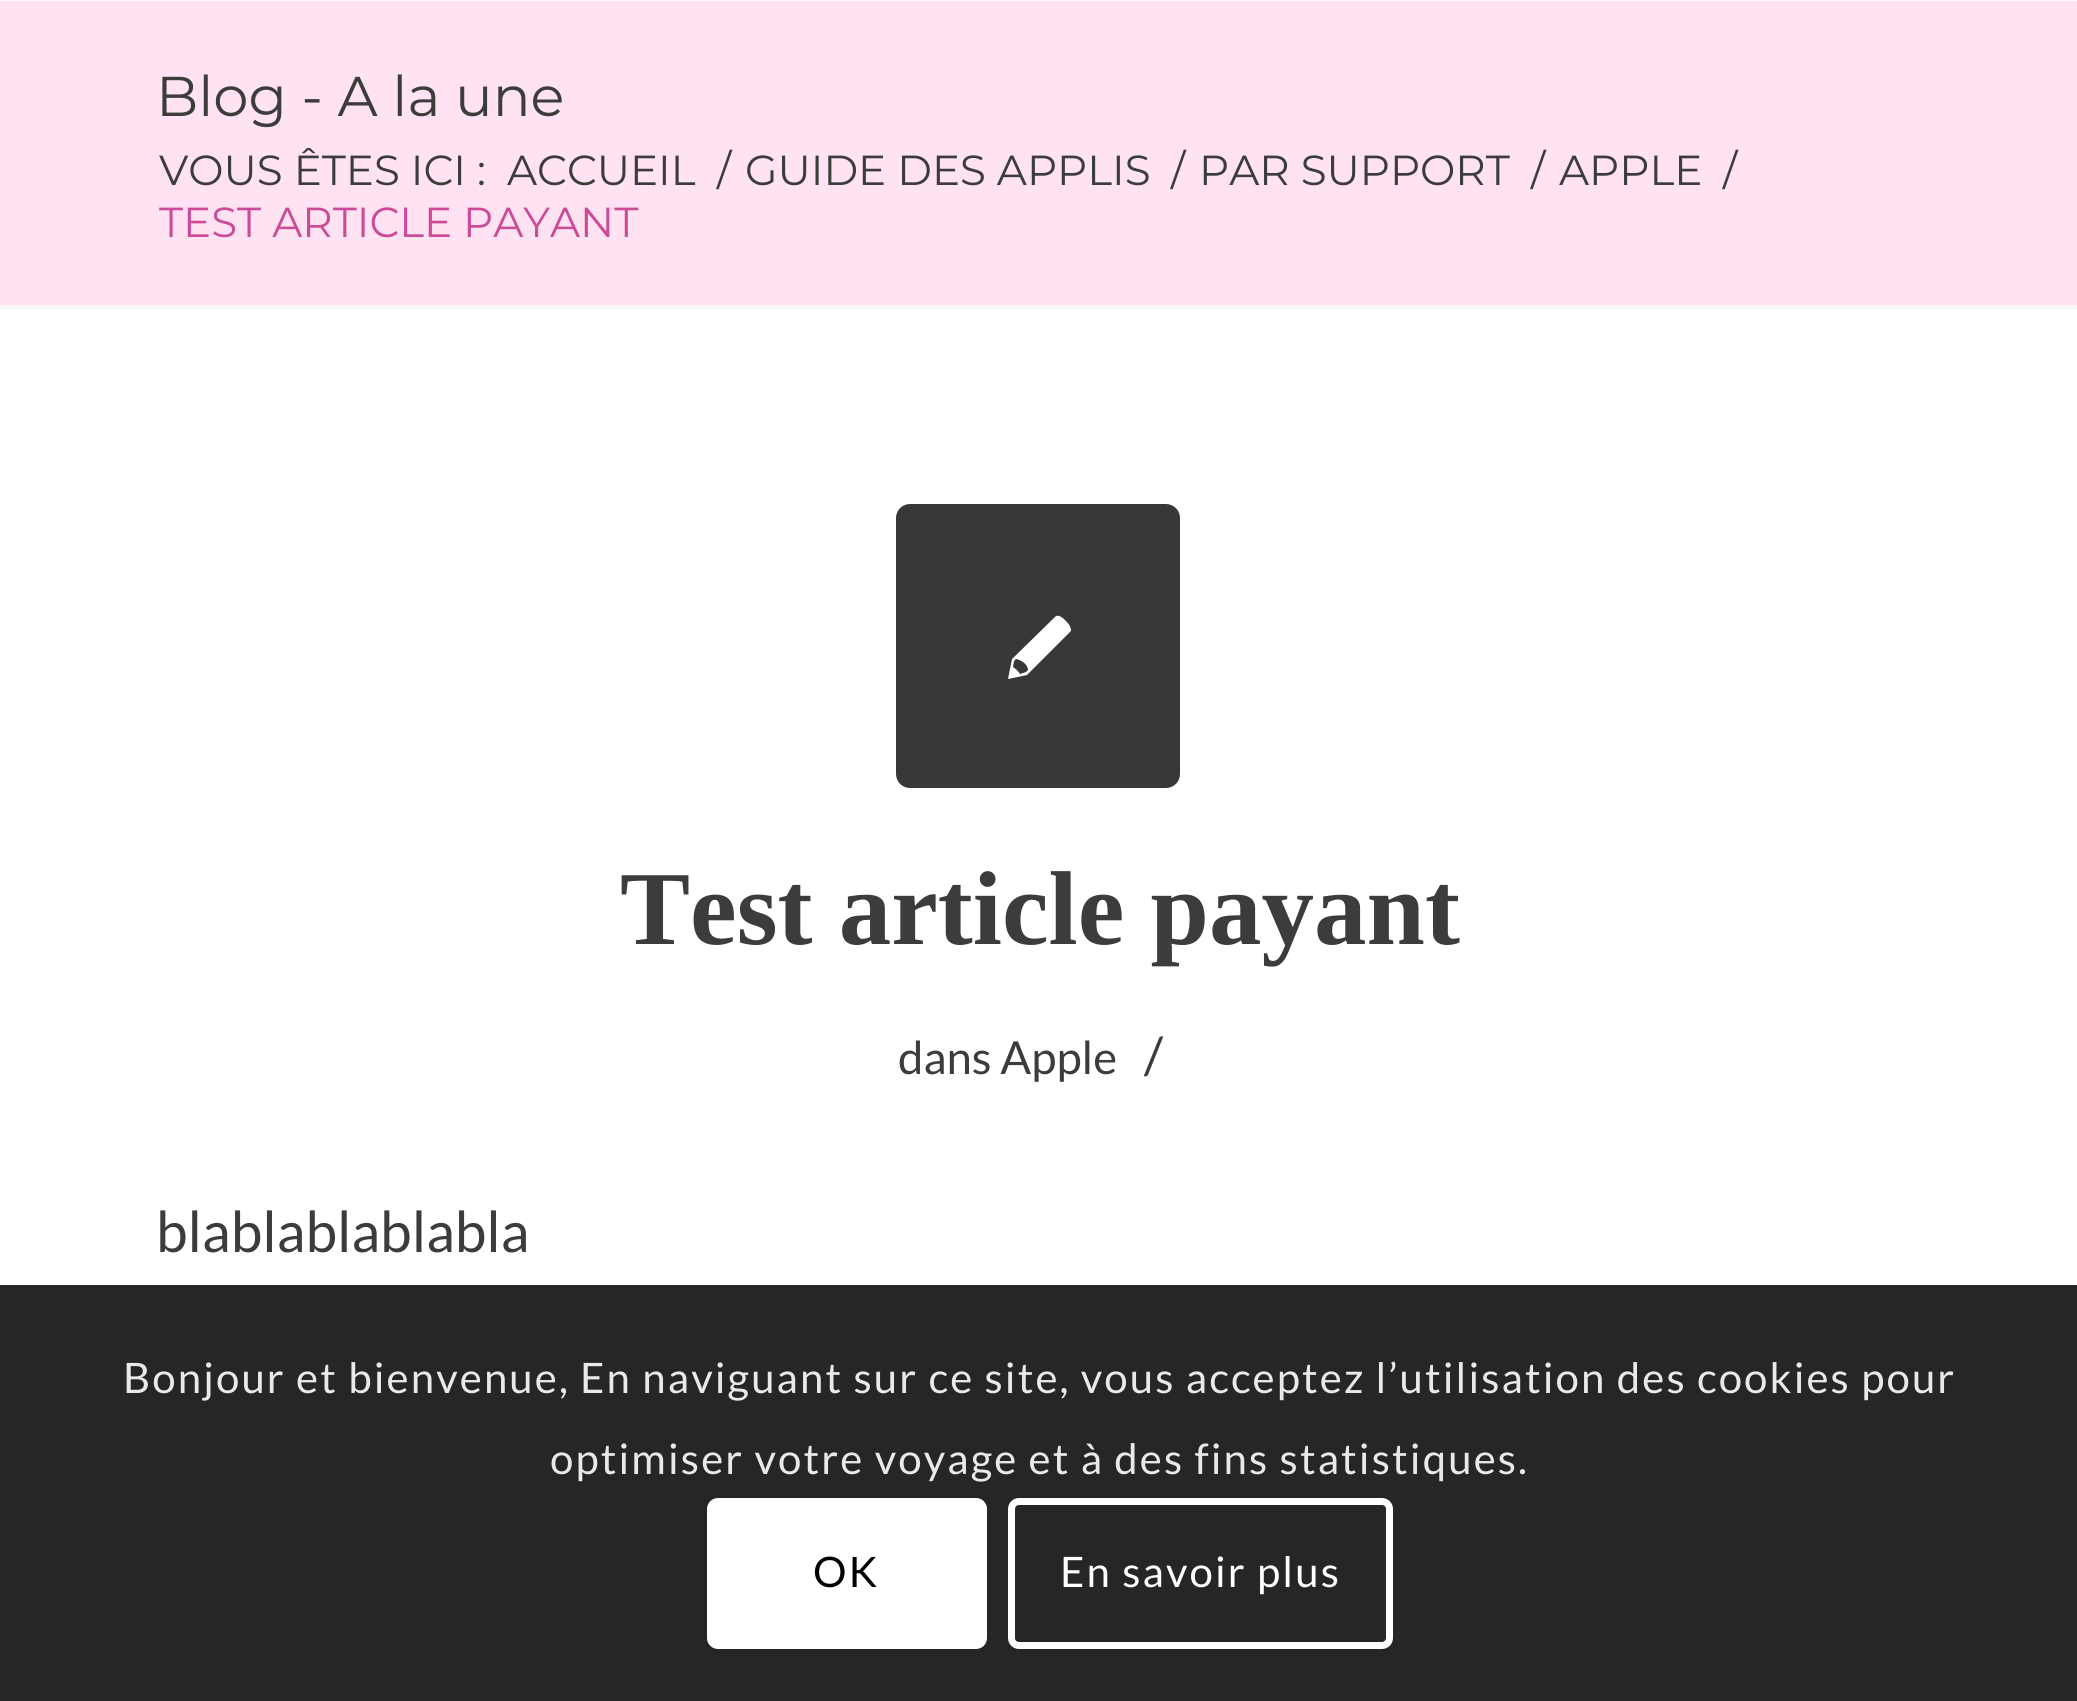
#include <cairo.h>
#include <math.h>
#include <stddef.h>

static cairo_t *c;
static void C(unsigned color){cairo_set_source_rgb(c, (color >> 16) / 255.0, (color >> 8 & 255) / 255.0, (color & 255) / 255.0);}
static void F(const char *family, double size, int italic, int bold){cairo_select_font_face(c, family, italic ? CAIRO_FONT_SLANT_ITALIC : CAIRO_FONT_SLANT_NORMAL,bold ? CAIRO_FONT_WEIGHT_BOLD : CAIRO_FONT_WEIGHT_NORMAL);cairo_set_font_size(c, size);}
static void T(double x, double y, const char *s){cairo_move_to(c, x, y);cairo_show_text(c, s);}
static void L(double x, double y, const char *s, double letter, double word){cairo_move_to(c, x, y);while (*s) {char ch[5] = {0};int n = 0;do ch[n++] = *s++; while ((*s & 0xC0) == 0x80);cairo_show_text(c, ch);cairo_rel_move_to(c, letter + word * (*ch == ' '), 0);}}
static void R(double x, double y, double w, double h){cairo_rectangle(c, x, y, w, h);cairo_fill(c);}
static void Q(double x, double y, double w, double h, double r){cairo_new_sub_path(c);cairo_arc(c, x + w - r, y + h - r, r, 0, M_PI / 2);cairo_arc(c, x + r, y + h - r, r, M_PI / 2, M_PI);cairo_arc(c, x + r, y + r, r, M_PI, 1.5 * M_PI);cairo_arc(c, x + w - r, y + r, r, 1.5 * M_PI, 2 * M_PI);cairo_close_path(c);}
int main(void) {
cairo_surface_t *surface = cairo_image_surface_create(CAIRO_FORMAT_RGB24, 2077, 1701);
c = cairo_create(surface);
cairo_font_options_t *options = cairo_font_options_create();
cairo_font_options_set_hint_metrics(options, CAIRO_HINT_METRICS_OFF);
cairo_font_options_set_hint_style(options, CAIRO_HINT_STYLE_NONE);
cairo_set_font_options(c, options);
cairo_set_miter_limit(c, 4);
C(0xffffff);
cairo_paint(c);
C(0xf8f8f8);
R(0,0,2077,1);
C(0xffe3f2);
R(0,1,2077,304);
F("Montserrat Thin",56,0,0);
C(0x3c3c3b);
T(156,116,"Blog - A la une");
F("Montserrat Thin",42,0,0);
T(159,185,"VOUS ÊTES ICI :");
T(507,185,"ACCUEIL");
T(717,185,"/");
T(745,185,"GUIDE DES APPLIS");
T(1171,185,"/");
T(1199,185,"PAR SUPPORT");
T(1531,185,"/");
T(1559,185,"APPLE");
T(1723,185,"/");
C(0xcd4b96);
T(159,237,"TEST ARTICLE PAYANT");
C(0xf8f8f8);
R(0,305,2077,4);
C(0x383838);
Q(896,504,284,284,14);
cairo_fill(c);
C(0xffffff);
cairo_new_path(c);
cairo_move_to(c,1066,621);
cairo_curve_to(c,1069,624,1071,627,1071,631);
cairo_line_to(c,1027,675);
cairo_line_to(c,1008,679);
cairo_line_to(c,1012,659);
cairo_line_to(c,1056,616);
cairo_curve_to(c,1059,615,1062,617,1066,621);
cairo_close_path(c);
cairo_move_to(c,1026,672);
cairo_line_to(c,1028,670);
cairo_curve_to(c,1028,665,1022,660,1016,659);
cairo_line_to(c,1014,661);
cairo_line_to(c,1013,667);
cairo_curve_to(c,1016,669,1018,671,1020,674);
cairo_close_path(c);
cairo_fill(c);
F("Liberation Serif",105,0,1);
C(0x3c3c3b);
T(620,944,"Test article payant");
F("Lato",45.5,0,0);
T(898,1074,"dans Apple");
F("Lato",51,0,0);
T(1144,1074,"/");
F("Lato",56.5,0,0);
T(156,1252,"blablablablabla");
C(0x262626);
R(0,1285,2077,416);
F("Lato",42,0,0);
C(0xe9e9e9);
L(123,1393,"Bonjour et bienvenue, En naviguant sur ce site, vous acceptez l’utilisation des cookies pour",2.1,0);
L(550,1474,"optimiser votre voyage et à des fins statistiques.",2.1,0);
C(0xffffff);
Q(707,1498,280,151,11);
cairo_fill(c);
C(0x000000);
L(813,1587,"OK",2.1,0);
Q(1011.5,1501.5,378,144,7.5);
C(0xffffff);
cairo_set_line_width(c,7);
cairo_stroke(c);
L(1060,1587,"En savoir plus",2.1,0);
cairo_surface_write_to_png(surface, "o.png");
cairo_font_options_destroy(options);
cairo_destroy(c);
cairo_surface_destroy(surface);
return 0;
}
